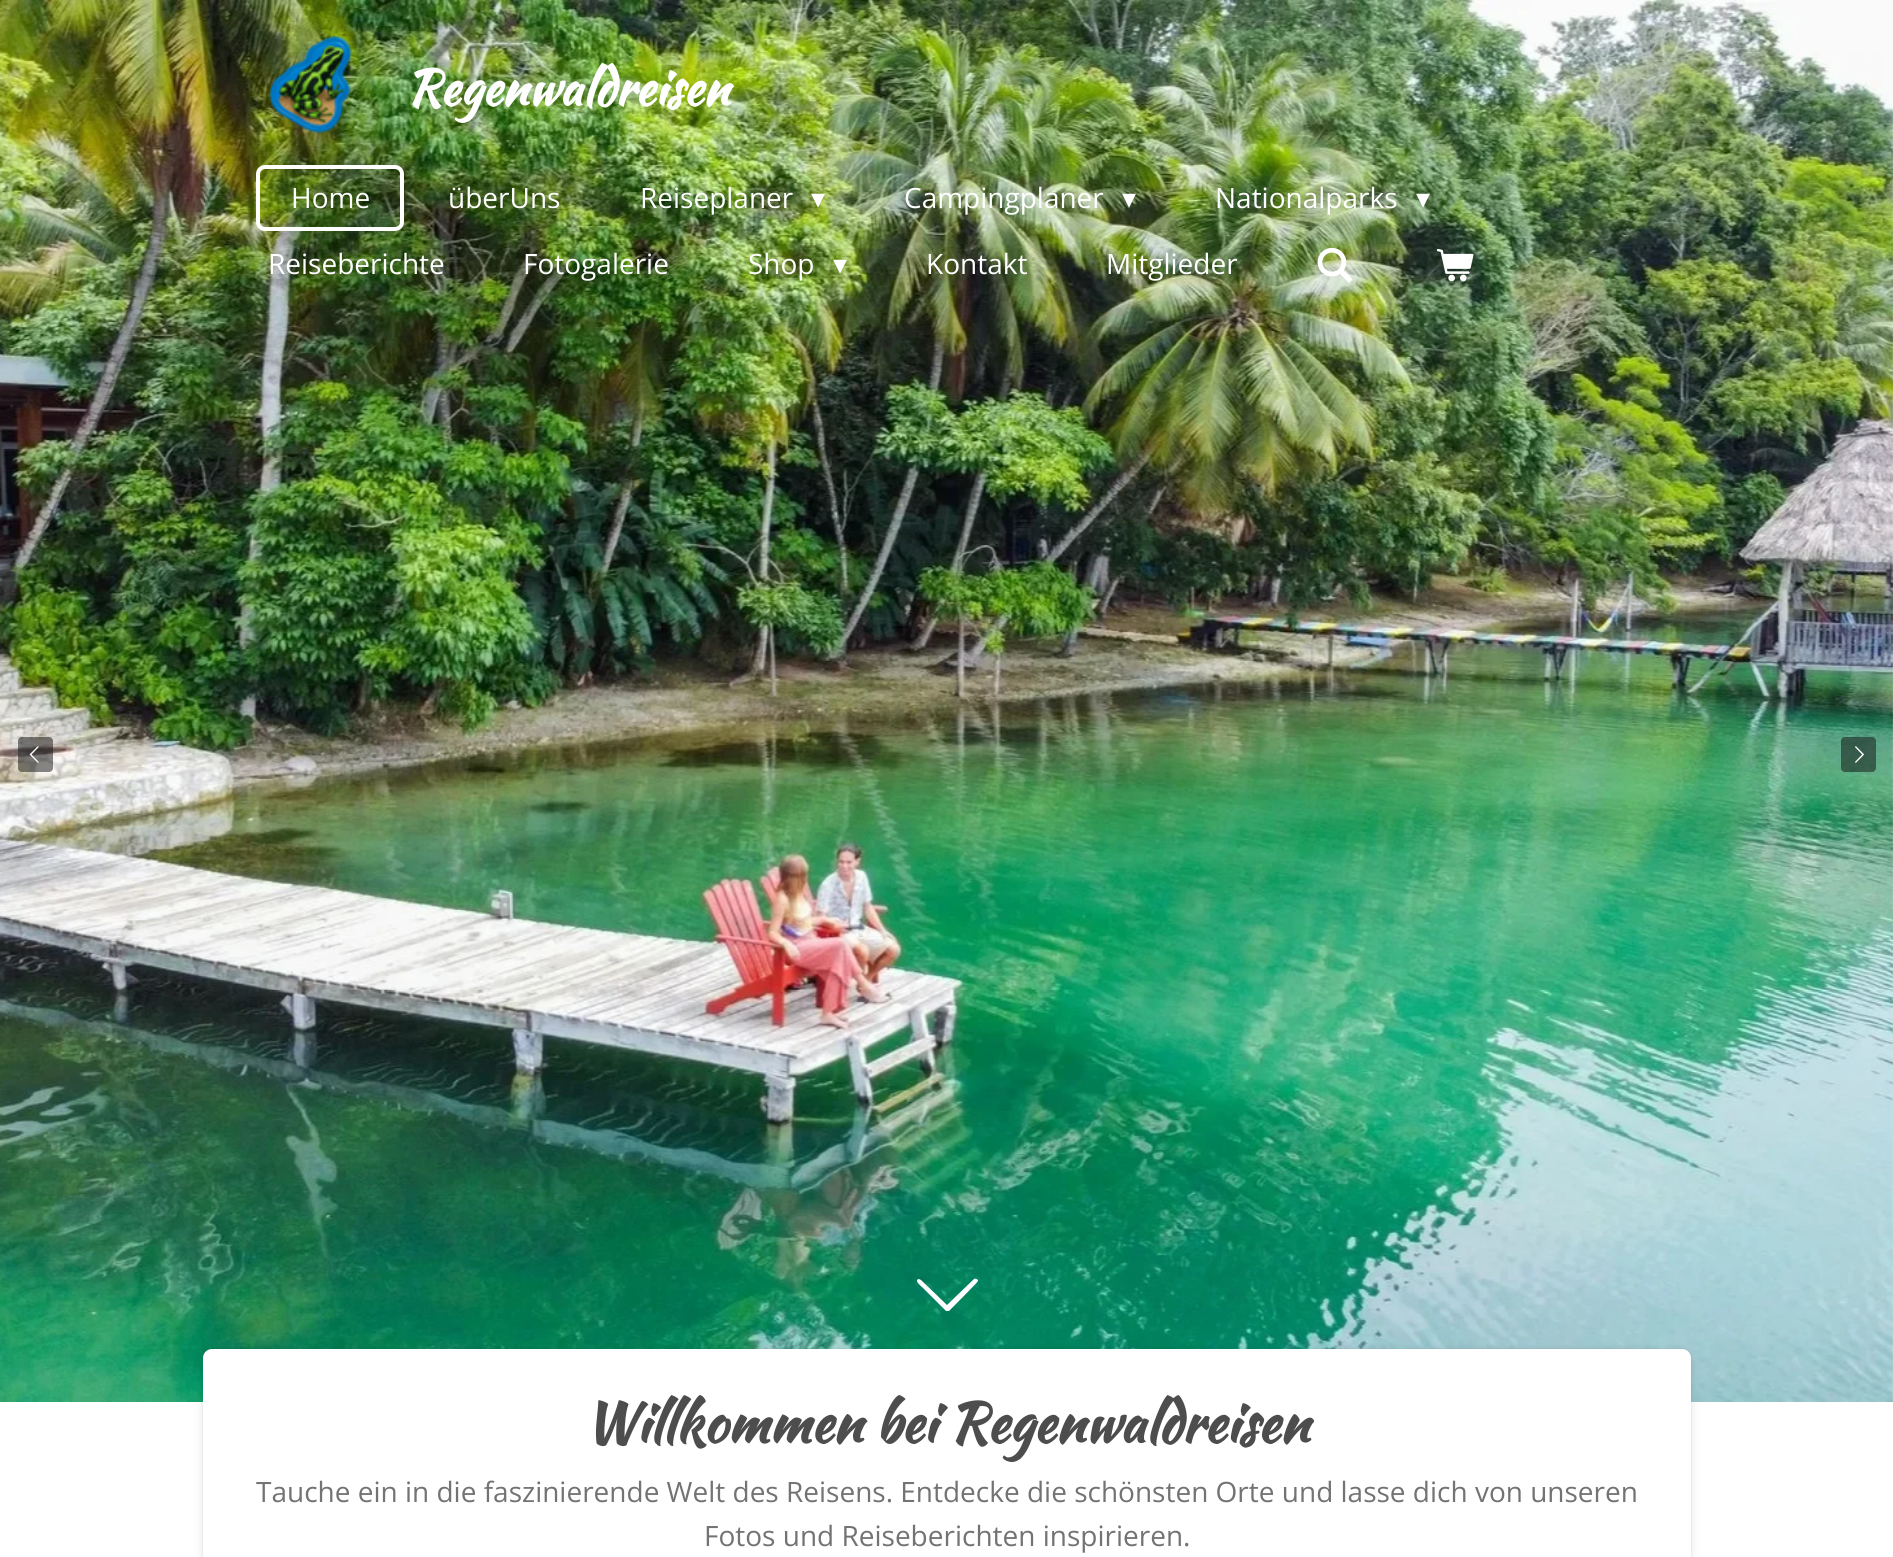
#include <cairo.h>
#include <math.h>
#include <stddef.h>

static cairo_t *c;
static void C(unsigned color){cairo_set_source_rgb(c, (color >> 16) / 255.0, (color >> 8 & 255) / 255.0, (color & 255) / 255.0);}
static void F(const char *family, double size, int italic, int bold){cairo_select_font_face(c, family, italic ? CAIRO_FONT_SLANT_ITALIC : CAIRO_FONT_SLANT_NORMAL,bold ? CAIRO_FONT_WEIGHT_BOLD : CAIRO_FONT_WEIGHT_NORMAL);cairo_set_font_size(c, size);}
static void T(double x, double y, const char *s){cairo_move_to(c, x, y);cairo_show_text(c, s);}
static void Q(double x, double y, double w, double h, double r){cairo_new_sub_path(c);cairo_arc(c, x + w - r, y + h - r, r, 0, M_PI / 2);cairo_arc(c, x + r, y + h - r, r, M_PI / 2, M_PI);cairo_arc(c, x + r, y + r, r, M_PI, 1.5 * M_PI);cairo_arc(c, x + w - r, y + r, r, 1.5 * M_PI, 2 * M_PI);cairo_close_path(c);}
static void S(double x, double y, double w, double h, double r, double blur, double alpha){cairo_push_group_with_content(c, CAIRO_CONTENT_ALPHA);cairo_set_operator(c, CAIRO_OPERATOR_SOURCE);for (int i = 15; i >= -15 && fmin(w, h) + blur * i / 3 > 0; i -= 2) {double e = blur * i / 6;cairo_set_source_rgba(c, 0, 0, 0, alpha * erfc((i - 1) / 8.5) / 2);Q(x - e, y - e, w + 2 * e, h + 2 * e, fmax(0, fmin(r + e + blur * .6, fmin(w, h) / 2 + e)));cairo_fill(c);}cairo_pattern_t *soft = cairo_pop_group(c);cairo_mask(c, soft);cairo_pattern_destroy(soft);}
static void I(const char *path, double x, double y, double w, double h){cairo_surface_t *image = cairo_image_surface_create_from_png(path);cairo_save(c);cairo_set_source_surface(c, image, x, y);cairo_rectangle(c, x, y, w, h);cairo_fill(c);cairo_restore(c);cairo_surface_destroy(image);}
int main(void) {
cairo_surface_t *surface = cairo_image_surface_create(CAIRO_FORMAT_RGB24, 1893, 1557);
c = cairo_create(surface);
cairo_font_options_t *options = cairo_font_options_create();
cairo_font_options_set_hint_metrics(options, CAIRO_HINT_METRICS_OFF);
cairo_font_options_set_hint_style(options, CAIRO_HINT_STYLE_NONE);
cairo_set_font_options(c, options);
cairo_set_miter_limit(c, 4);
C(0xffffff);
cairo_paint(c);
I("1.png",0,0,1893,1402);
cairo_set_source_rgba(c,0.059,0.059,0.059,0.5);
Q(18,737,35,35,4);
cairo_fill(c);
I("2.png",29,746,10,17);
Q(1841,737,35,35,4);
cairo_fill(c);
I("3.png",1855,746,9,17);
C(0xffffff);
cairo_new_path(c);
cairo_move_to(c,921,1280);
cairo_line_to(c,947,1305);
cairo_line_to(c,974,1279);
cairo_curve_to(c,975,1278,978,1279,978,1281);
cairo_curve_to(c,978,1282,951,1309,949,1311);
cairo_line_to(c,946,1311);
cairo_line_to(c,923,1288);
cairo_curve_to(c,922,1287,913,1280,919,1279);
cairo_close_path(c);
cairo_fill(c);
I("4.png",269,35,84,99);
F("Kaushan Script",49,0,1);
T(406,105,"Regenwaldreisen");
Q(258,167,144,62,7);
cairo_set_line_width(c,4);
cairo_stroke(c);
F("Open Sans",28,0,0);
T(291,208,"Home");
T(448,208,"überUns");
T(640,208,"Reiseplaner");
F("DejaVu Sans",28,0,0);
T(811,208,"▾");
F("Open Sans",28,0,0);
T(904,208,"Campingplaner");
F("DejaVu Sans",28,0,0);
T(1122,208,"▾");
F("Open Sans",28,0,0);
T(1215,208,"Nationalparks");
F("DejaVu Sans",28,0,0);
T(1416,208,"▾");
F("Open Sans",28,0,0);
T(268,274,"Reiseberichte");
T(523,274,"Fotogalerie");
T(748,274,"Shop");
F("DejaVu Sans",28,0,0);
T(833,274,"▾");
F("Open Sans",28,0,0);
T(926,274,"Kontakt");
T(1106,274,"Mitglieder");
I("5.png",1317,247,36,36);
I("6.png",1436,248,38,34);
C(0x000000);
S(203,1349,1488,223,9,2,.1);
S(203,1353,1488,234,9,7,.07);
C(0xffffff);
Q(203,1349,1488,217,9);
cairo_fill(c);
F("Kaushan Script",54.6,0,1);
C(0x4d4d4d);
T(584,1442,"Willkommen bei Regenwaldreisen");
F("Open Sans",28,0,0);
C(0x737373);
T(256,1502,"Tauche ein in die faszinierende Welt des Reisens. Entdecke die schönsten Orte und lasse dich von unseren");
T(704,1546,"Fotos und Reiseberichten inspirieren.");
cairo_surface_write_to_png(surface, "o.png");
cairo_font_options_destroy(options);
cairo_destroy(c);
cairo_surface_destroy(surface);
return 0;
}
